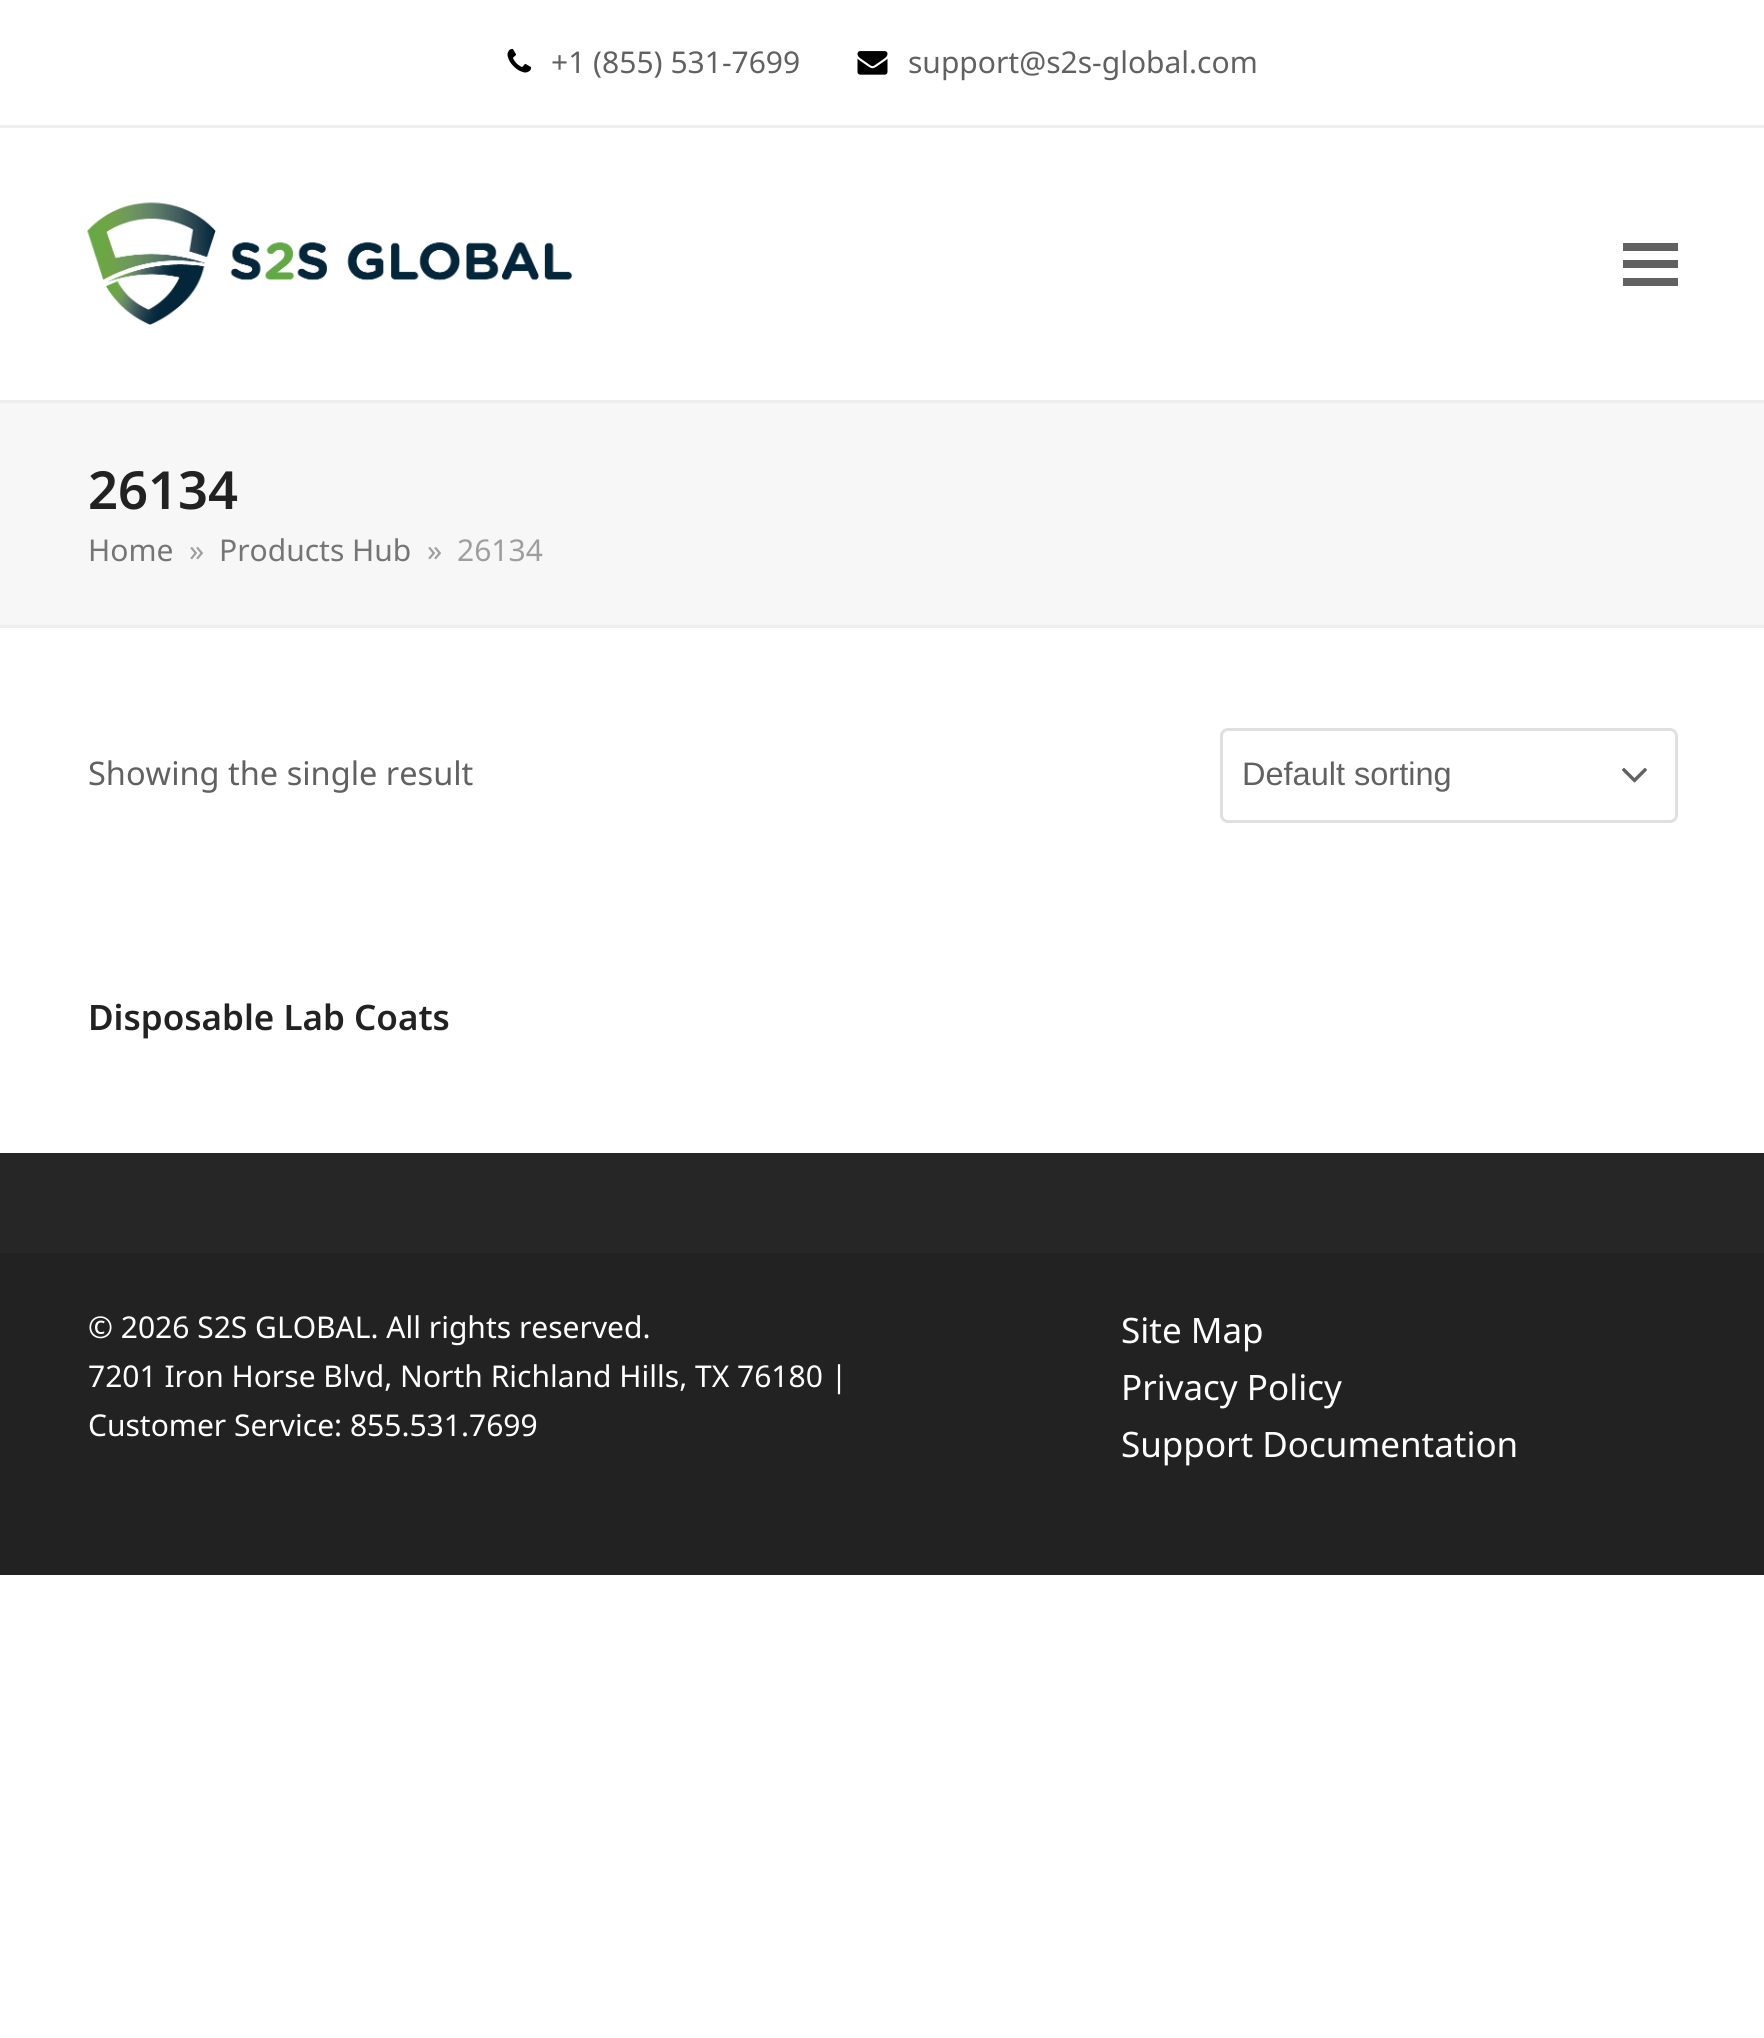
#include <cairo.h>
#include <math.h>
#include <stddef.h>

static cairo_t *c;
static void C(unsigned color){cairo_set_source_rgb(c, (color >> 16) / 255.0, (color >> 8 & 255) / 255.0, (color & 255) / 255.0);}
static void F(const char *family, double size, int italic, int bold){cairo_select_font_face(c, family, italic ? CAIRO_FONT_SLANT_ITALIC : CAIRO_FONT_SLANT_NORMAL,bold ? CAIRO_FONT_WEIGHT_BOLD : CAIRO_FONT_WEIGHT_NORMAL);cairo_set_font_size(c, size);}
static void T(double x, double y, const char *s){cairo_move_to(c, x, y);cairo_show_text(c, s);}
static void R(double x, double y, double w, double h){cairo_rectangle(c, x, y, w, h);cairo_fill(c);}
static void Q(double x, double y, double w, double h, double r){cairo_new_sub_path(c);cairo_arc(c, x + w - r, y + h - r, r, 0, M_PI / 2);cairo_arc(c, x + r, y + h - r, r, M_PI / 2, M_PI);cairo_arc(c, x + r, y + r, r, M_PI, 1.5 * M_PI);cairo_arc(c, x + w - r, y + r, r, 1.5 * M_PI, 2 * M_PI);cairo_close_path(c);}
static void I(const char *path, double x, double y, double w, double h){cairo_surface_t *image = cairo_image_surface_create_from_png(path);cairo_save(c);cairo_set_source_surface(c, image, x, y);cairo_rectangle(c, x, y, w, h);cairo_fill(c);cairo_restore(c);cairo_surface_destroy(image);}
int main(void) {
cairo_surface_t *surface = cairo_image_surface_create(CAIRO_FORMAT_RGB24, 1764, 2038);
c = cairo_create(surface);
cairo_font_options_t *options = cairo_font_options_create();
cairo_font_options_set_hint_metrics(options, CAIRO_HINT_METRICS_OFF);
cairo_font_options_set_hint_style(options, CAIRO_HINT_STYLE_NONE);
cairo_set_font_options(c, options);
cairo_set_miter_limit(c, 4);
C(0xffffff);
cairo_paint(c);
C(0xeeeeee);
R(0,125,1764,3);
I("1.png",507,48,25,25);
F("Noto Sans",30,0,0);
C(0x616161);
T(551,73,"+1 (855) 531-7699");
I("2.png",857,51,31,24);
T(908,73,"support@s2s-global.com");
I("3.png",87,202,486,123);
R(1623,260,55,8);
R(1623,243,55,8);
R(1623,278,55,8);
C(0xf7f7f7);
R(0,403,1764,222);
C(0xeeeeee);
R(0,400,1764,3);
R(0,625,1764,3);
F("Noto Sans SemiBold",52.5,0,0);
C(0x222222);
T(88,509,"26134");
F("Noto Sans",30,0,0);
C(0x757575);
T(88,561,"Home");
C(0x9e9e9e);
T(189,561,"»");
C(0x757575);
T(219,561,"Products Hub");
C(0x9e9e9e);
T(427,561,"»");
T(457,561,"26134");
F("Noto Sans",32.5,0,0);
C(0x616161);
T(88,785,"Showing the single result");
Q(1221.5,729.5,455,92,6.5);
C(0xe0e0e0);
cairo_set_line_width(c,3);
cairo_stroke(c);
F("Liberation Sans",32.5,0,0);
C(0x616161);
T(1242,785,"Default sorting");
I("4.png",1622,767,25,16);
F("Noto Sans SemiBold",35,0,0);
C(0x222222);
T(88,1030,"Disposable Lab Coats");
C(0x262626);
R(0,1153,1764,100);
C(0x222222);
R(0,1253,1764,322);
F("Noto Sans",30,0,0);
C(0xffffff);
T(88,1338,"© 2026 S2S GLOBAL. All rights reserved.");
T(88,1387,"7201 Iron Horse Blvd, North Richland Hills, TX 76180 |");
T(88,1436,"Customer Service: 855.531.7699");
F("Noto Sans",35,0,0);
T(1121,1343,"Site Map");
T(1121,1400,"Privacy Policy");
T(1121,1457,"Support Documentation");
cairo_surface_write_to_png(surface, "o.png");
cairo_font_options_destroy(options);
cairo_destroy(c);
cairo_surface_destroy(surface);
return 0;
}
